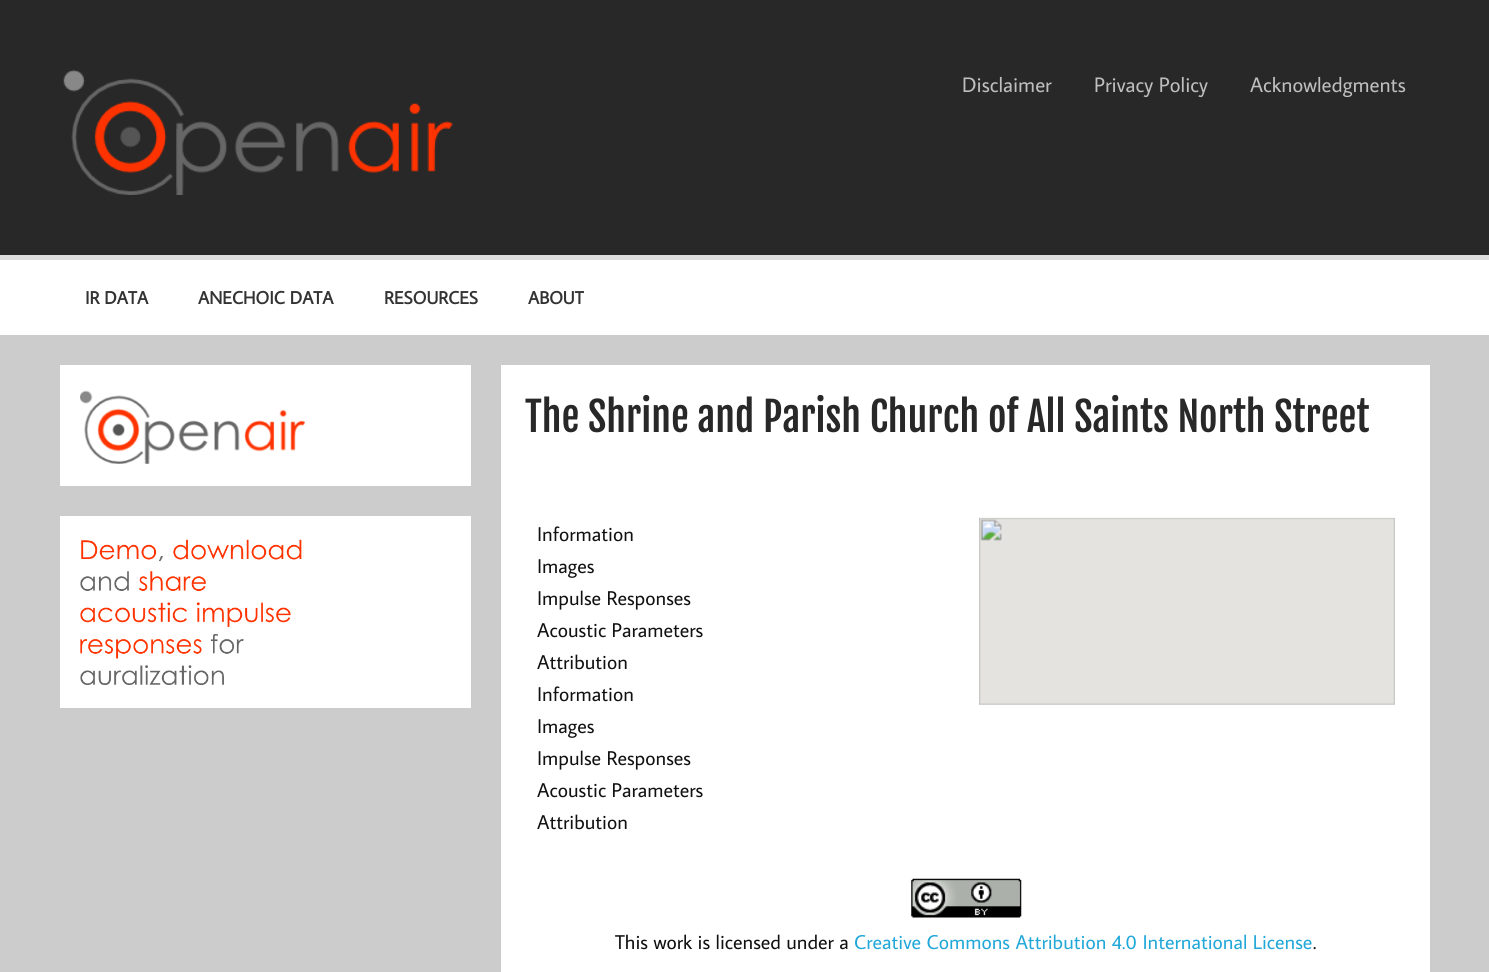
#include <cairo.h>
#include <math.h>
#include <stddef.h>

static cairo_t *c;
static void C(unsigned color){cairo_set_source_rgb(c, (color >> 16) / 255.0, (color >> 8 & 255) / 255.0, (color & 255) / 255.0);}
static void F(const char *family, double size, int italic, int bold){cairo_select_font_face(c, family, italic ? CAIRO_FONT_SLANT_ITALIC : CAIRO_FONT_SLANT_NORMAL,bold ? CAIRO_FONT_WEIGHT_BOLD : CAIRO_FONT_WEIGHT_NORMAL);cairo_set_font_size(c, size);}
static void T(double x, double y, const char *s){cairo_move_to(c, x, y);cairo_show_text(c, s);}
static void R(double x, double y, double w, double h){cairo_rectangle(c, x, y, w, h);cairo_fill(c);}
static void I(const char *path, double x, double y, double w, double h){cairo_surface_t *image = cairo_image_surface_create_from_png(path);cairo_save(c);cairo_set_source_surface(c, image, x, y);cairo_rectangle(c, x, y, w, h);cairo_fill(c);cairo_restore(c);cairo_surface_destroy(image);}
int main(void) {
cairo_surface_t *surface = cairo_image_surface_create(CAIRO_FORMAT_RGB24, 1489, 972);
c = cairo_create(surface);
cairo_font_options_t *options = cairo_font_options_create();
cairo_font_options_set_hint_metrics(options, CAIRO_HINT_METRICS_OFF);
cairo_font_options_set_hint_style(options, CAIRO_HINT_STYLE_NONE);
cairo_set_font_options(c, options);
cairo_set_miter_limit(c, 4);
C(0xcccccc);
cairo_paint(c);
C(0x282828);
R(0,0,1489,255);
I("1.png",63,70,390,125);
F("Average Sans",21,0,0);
C(0xbfbfbf);
T(962,92,"Disclaimer");
T(1094,92,"Privacy Policy");
T(1250,92,"Acknowledgments");
C(0xffffff);
R(0,260,1489,75);
C(0xdddddd);
R(0,255,1489,5);
F("Average Sans",18,0,1);
C(0x333333);
T(85,304,"IR DATA");
T(198,304,"ANECHOIC DATA");
T(384,304,"RESOURCES");
T(528,304,"ABOUT");
C(0xffffff);
R(60,365,411,121);
I("2.png",80,390,225,74);
R(60,516,411,192);
I("3.png",80,539,222,146);
R(501,365,929,607);
F("Fjalla One",40,0,0);
C(0x282828);
T(525,432,"The Shrine and Parish Church of All Saints North Street");
F("Average Sans",20,0,0);
C(0x111111);
T(537,541,"Information");
T(537,573,"Images");
T(537,605,"Impulse Responses");
T(537,637,"Acoustic Parameters");
T(537,669,"Attribution");
T(537,701,"Information");
T(537,733,"Images");
T(537,765,"Impulse Responses");
T(537,797,"Acoustic Parameters");
T(537,829,"Attribution");
I("4.png",979,517,416,188);
I("5.png",911,878,111,40);
T(615,949,"This work is licensed under a");
C(0x22a8d8);
T(854,949,"Creative Commons Attribution 4.0 International License");
C(0x111111);
T(1313,949,".");
cairo_surface_write_to_png(surface, "o.png");
cairo_font_options_destroy(options);
cairo_destroy(c);
cairo_surface_destroy(surface);
return 0;
}
